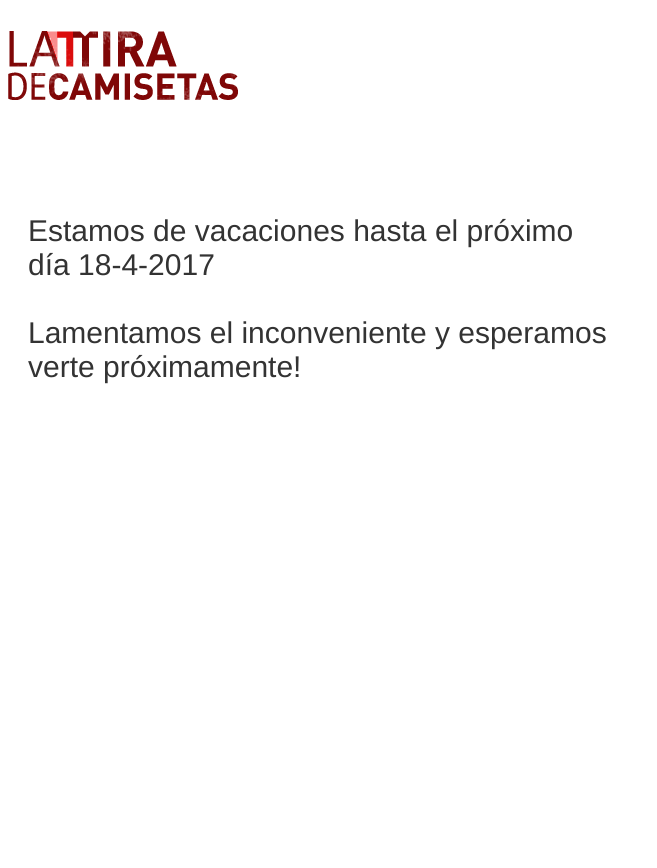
#include <cairo.h>
#include <math.h>
#include <stddef.h>

static cairo_t *c;
static void C(unsigned color){cairo_set_source_rgb(c, (color >> 16) / 255.0, (color >> 8 & 255) / 255.0, (color & 255) / 255.0);}
static void F(const char *family, double size, int italic, int bold){cairo_select_font_face(c, family, italic ? CAIRO_FONT_SLANT_ITALIC : CAIRO_FONT_SLANT_NORMAL,bold ? CAIRO_FONT_WEIGHT_BOLD : CAIRO_FONT_WEIGHT_NORMAL);cairo_set_font_size(c, size);}
static void T(double x, double y, const char *s){cairo_move_to(c, x, y);cairo_show_text(c, s);}
static void I(const char *path, double x, double y, double w, double h){cairo_surface_t *image = cairo_image_surface_create_from_png(path);cairo_save(c);cairo_set_source_surface(c, image, x, y);cairo_rectangle(c, x, y, w, h);cairo_fill(c);cairo_restore(c);cairo_surface_destroy(image);}
int main(void) {
cairo_surface_t *surface = cairo_image_surface_create(CAIRO_FORMAT_RGB24, 657, 868);
c = cairo_create(surface);
cairo_font_options_t *options = cairo_font_options_create();
cairo_font_options_set_hint_metrics(options, CAIRO_HINT_METRICS_OFF);
cairo_font_options_set_hint_style(options, CAIRO_HINT_STYLE_NONE);
cairo_set_font_options(c, options);
cairo_set_miter_limit(c, 4);
C(0xffffff);
cairo_paint(c);
I("1.png",8,31,230,69);
F("Liberation Sans",30,0,0);
C(0x333333);
T(28,241,"Estamos de vacaciones hasta el próximo");
T(28,275,"día 18-4-2017");
T(28,343,"Lamentamos el inconveniente y esperamos");
T(28,377,"verte próximamente!");
cairo_surface_write_to_png(surface, "o.png");
cairo_font_options_destroy(options);
cairo_destroy(c);
cairo_surface_destroy(surface);
return 0;
}
